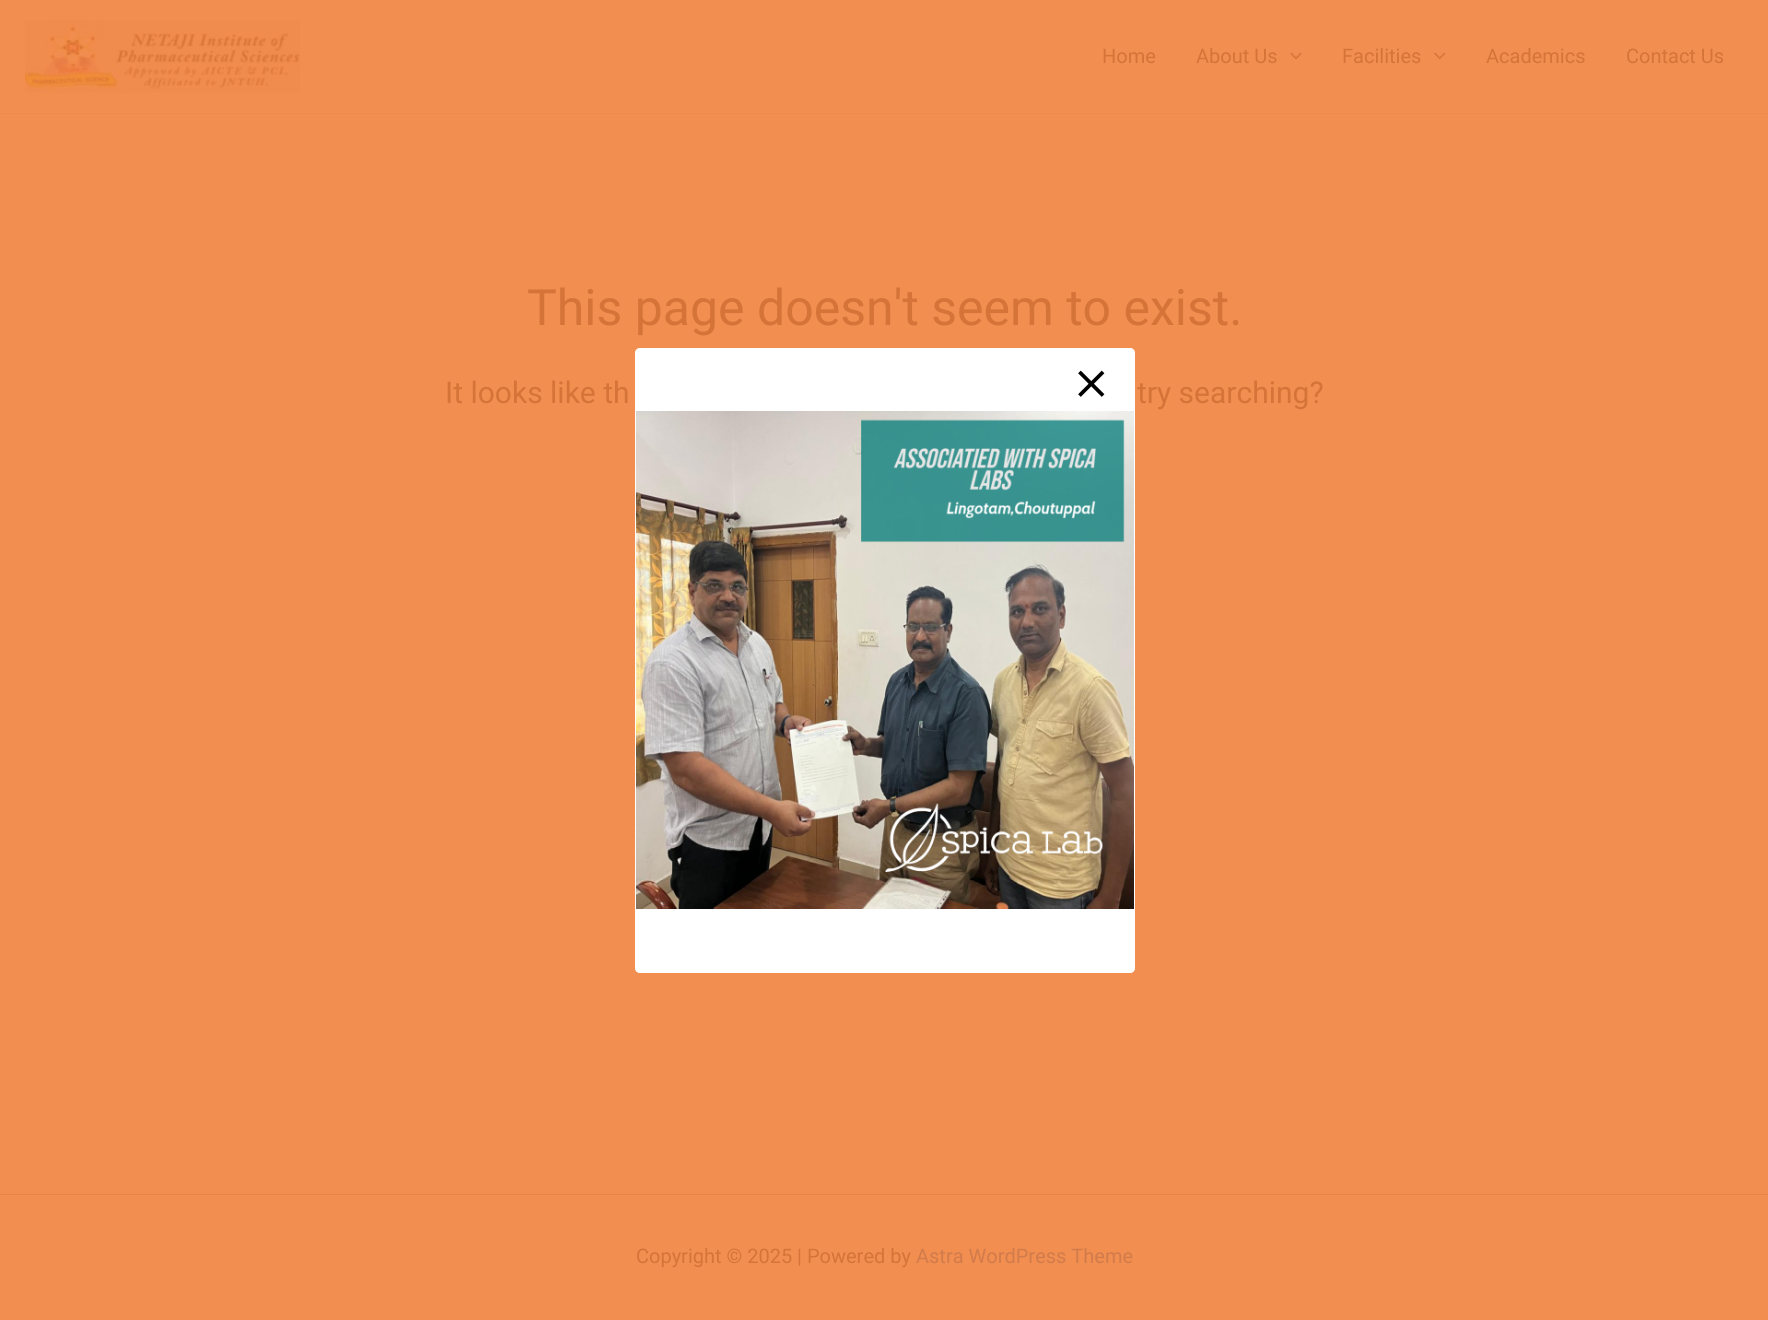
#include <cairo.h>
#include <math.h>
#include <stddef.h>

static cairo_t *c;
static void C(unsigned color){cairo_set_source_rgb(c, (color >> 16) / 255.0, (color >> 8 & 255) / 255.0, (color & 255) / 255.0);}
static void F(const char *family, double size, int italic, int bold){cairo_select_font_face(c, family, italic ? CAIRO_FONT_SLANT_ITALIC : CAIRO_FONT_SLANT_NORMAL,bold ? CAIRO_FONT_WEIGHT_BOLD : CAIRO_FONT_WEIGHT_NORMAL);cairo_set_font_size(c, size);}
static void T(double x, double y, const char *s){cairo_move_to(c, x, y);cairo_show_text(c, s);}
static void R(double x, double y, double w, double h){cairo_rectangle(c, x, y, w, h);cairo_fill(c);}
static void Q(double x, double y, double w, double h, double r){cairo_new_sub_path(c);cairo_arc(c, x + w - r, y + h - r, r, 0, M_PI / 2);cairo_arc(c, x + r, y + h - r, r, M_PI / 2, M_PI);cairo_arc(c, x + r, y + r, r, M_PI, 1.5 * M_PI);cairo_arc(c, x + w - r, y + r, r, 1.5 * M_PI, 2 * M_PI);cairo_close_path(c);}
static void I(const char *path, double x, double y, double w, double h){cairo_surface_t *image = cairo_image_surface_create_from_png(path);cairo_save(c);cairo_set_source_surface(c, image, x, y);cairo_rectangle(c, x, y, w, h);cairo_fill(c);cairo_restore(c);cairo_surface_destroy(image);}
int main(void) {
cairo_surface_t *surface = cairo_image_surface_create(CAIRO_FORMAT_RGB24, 1768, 1320);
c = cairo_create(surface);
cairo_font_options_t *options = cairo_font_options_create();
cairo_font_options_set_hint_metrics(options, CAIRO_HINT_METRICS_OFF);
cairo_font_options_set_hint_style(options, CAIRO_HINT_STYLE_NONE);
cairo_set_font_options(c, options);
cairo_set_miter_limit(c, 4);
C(0xf18e50);
cairo_paint(c);
C(0xef8b4e);
R(0,113,1768,1);
I("1.png",25,20,275,73);
F("Roboto",20,0,0);
C(0xd57338);
T(1102,63,"Home");
T(1196,63,"About Us");
I("2.png",1290,52,12,8);
T(1342,63,"Facilities");
I("3.png",1434,52,12,8);
T(1486,63,"Academics");
T(1626,63,"Contact Us");
F("Roboto",50,0,0);
T(527,325,"This page doesn't seem to exist.");
F("Roboto",30,0,0);
T(445,403,"It looks like th");
T(1137,403,"try searching?");
C(0xe78548);
R(0,1194,1768,1);
F("Roboto",20,0,0);
C(0xd57338);
T(636,1263,"Copyright © 2025 | Powered by");
C(0xd27b4b);
T(916,1263,"Astra WordPress Theme");
Q(635.5,348.5,499,624,4.5);
C(0xf39e69);
cairo_set_line_width(c,1);
cairo_stroke(c);
Q(635.5,348.5,499,624,4.5);
C(0xf7be9b);
cairo_stroke(c);
C(0xffffff);
Q(635.5,348.5,499,624,4.5);
cairo_fill_preserve(c);
cairo_stroke(c);
I("4.png",1078,370,27,27);
I("5.png",636,411,498,498);
cairo_surface_write_to_png(surface, "o.png");
cairo_font_options_destroy(options);
cairo_destroy(c);
cairo_surface_destroy(surface);
return 0;
}
